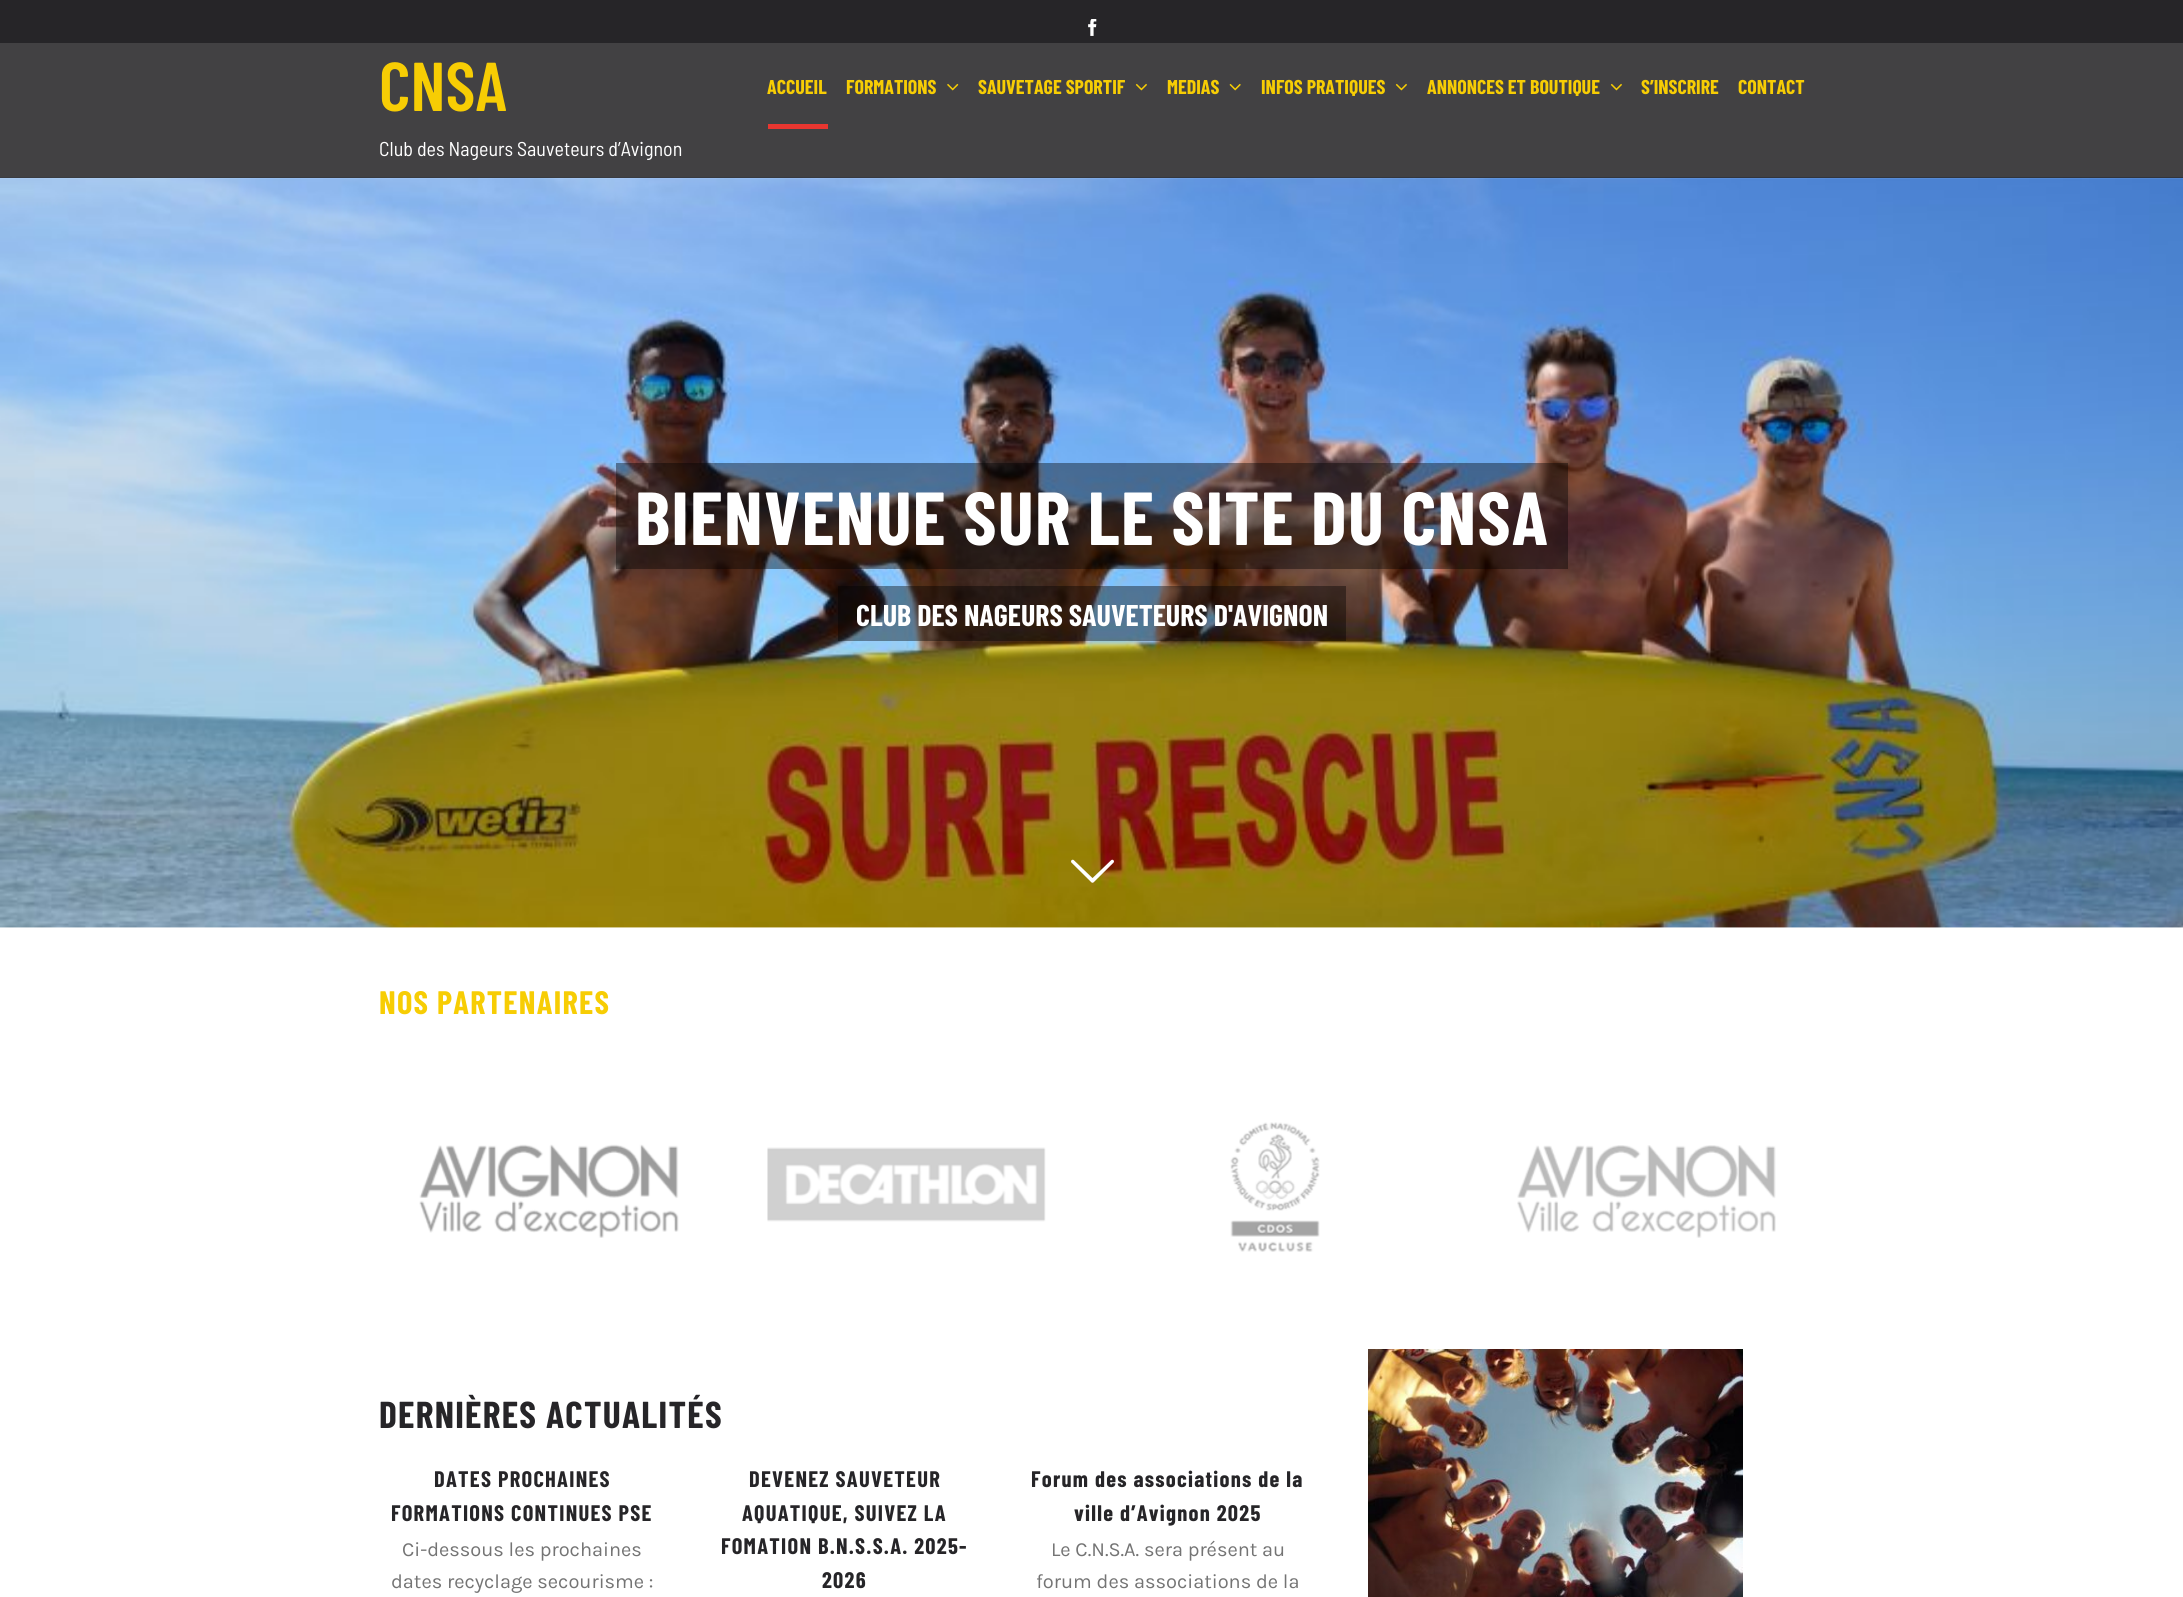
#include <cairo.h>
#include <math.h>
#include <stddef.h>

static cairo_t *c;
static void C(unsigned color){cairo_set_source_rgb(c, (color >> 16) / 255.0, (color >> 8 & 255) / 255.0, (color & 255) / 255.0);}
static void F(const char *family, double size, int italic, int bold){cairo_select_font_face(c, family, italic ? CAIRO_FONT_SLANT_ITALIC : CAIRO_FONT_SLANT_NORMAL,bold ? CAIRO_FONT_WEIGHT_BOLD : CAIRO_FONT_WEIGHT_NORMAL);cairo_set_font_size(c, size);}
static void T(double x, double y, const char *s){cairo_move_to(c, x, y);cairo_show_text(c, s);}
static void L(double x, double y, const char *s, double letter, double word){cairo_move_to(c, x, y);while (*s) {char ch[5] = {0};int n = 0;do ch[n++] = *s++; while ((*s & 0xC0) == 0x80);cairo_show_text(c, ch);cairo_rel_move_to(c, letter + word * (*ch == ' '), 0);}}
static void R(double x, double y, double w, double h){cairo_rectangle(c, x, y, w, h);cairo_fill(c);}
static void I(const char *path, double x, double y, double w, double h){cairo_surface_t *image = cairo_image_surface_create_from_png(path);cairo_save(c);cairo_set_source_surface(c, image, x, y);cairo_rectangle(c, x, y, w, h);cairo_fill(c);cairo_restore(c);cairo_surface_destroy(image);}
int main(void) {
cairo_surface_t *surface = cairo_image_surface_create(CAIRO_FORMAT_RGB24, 2183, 1597);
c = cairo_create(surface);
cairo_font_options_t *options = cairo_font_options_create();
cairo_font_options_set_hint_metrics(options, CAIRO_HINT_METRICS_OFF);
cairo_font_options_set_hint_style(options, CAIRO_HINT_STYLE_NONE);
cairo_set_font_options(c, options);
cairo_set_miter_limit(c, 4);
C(0xffffff);
cairo_paint(c);
C(0x262528);
R(0,0,2183,43);
I("1.png",1088,19,9,17);
I("5.png",0,177,2183,751);
cairo_set_source_rgba(c,0.149,0.145,0.157,0.87);
R(0,43,2183,135);
F("Barlow Condensed SemiBold",69,0,0);
C(0xf7cd04);
T(379,111,"CNSA");
F("Barlow Semi Condensed",20,0,0);
C(0xffffff);
T(379,156,"Club des Nageurs Sauveteurs d’Avignon");
F("Barlow Condensed",20,0,1);
C(0xf7cd04);
T(767,94,"ACCUEIL");
C(0xe83630);
R(768,124,60,5);
C(0xf7cd04);
T(846,94,"FORMATIONS");
I("2.png",947,83,12,8);
T(978,94,"SAUVETAGE SPORTIF");
I("3.png",1135,83,12,8);
T(1167,94,"MEDIAS");
I("4.png",1229,83,12,8);
T(1261,94,"INFOS PRATIQUES");
I("3.png",1395,83,12,8);
T(1427,94,"ANNONCES ET BOUTIQUE");
I("3.png",1610,83,12,8);
T(1641,94,"S’INSCRIRE");
T(1738,94,"CONTACT");
cairo_set_source_rgba(c,0,0,0,0.4);
R(616,463,952,106);
F("Barlow Condensed",75,0,1);
C(0xffffff);
L(635,545,"BIENVENUE SUR LE SITE DU CNSA",1.25,0);
cairo_set_source_rgba(c,0,0,0,0.4);
R(838,586,508,55);
F("Barlow Condensed",30,0,1);
C(0xffffff);
T(856,626,"CLUB DES NAGEURS SAUVETEURS D'AVIGNON");
I("6.png",1071,859,43,24);
F("Barlow Condensed",32.5,0,1);
C(0xf7cd04);
L(379,1014,"NOS PARTENAIRES",1.25,0);
I("7.png",419,1144,260,94);
I("8.png",767,1147,279,75);
I("9.png",1230,1122,90,130);
I("10.png",1517,1145,259,93);
F("Barlow Condensed",37.5,0,1);
C(0x262528);
L(379,1428,"DERNIÈRES ACTUALITÉS",1.25,0);
F("Barlow Condensed",22.5,0,1);
L(434,1487,"DATES PROCHAINES",1.25,0);
L(391,1521,"FORMATIONS CONTINUES PSE",1.25,0);
F("Karla",20,0,0);
C(0x747474);
T(402,1556,"Ci-dessous les prochaines");
T(391,1588,"dates recyclage secourisme :");
F("Barlow Condensed",22.5,0,1);
C(0x262528);
L(749,1487,"DEVENEZ SAUVETEUR",1.25,0);
L(742,1521,"AQUATIQUE, SUIVEZ LA",1.25,0);
L(721,1554,"FOMATION B.N.S.S.A. 2025-",1.25,0);
L(822,1588,"2026",1.25,0);
L(1031,1487,"Forum des associations de la",1.25,0);
L(1074,1521,"ville d’Avignon 2025",1.25,0);
F("Karla",20,0,0);
C(0x747474);
T(1051,1556,"Le C.N.S.A. sera présent au");
T(1036,1588,"forum des associations de la");
I("11.png",1368,1349,375,248);
cairo_surface_write_to_png(surface, "o.png");
cairo_font_options_destroy(options);
cairo_destroy(c);
cairo_surface_destroy(surface);
return 0;
}
